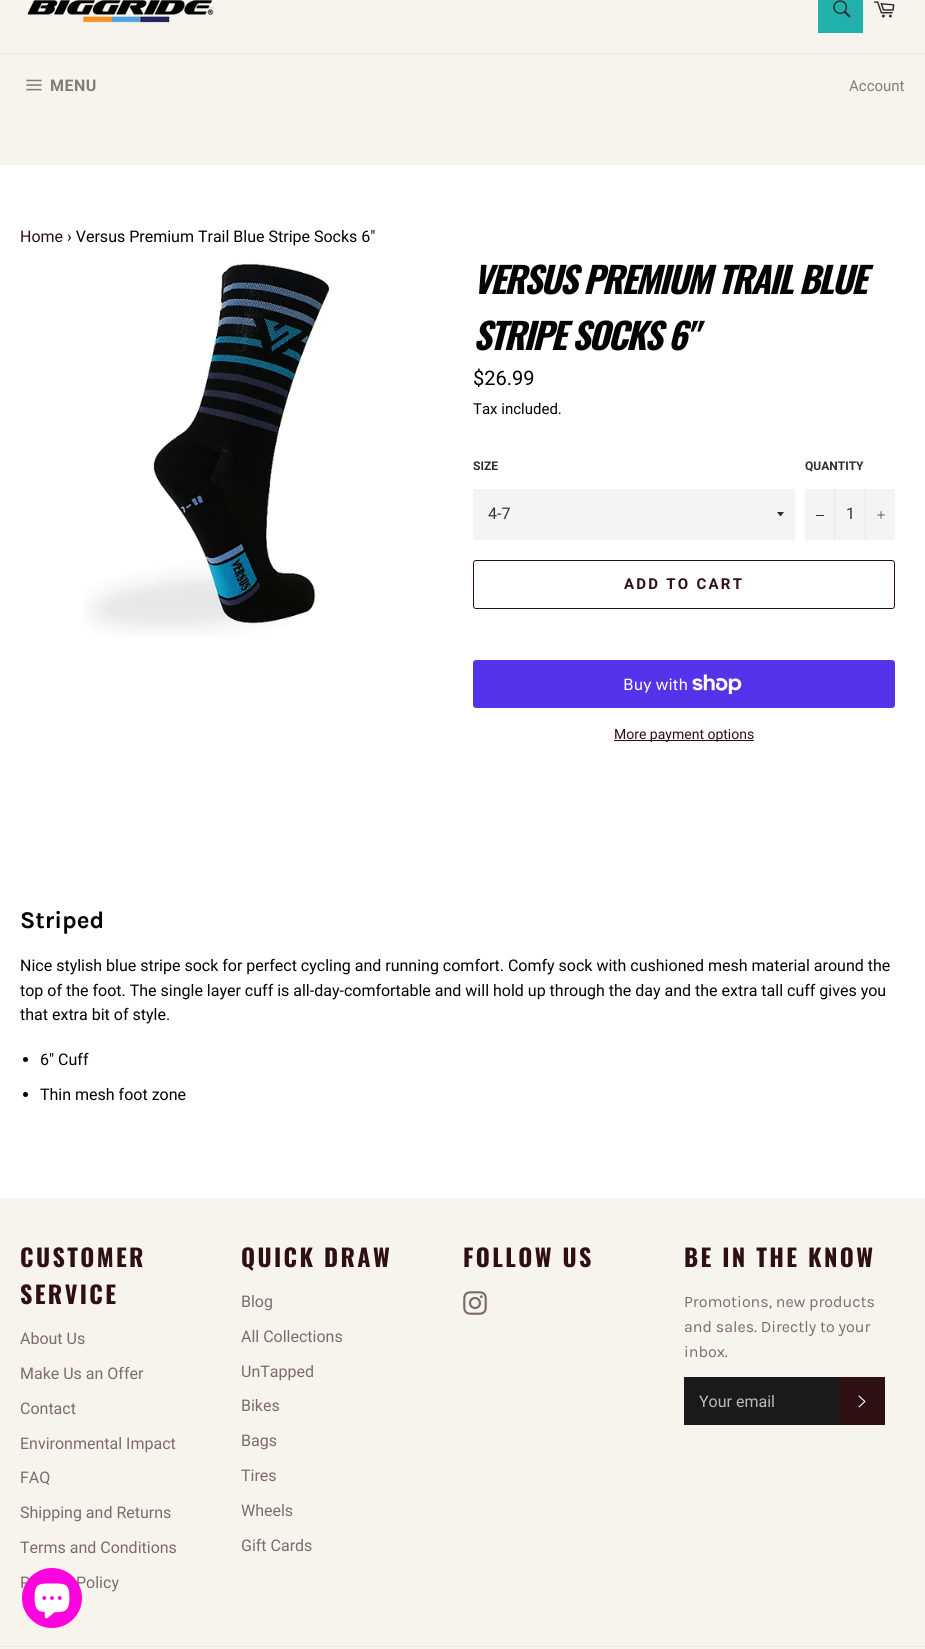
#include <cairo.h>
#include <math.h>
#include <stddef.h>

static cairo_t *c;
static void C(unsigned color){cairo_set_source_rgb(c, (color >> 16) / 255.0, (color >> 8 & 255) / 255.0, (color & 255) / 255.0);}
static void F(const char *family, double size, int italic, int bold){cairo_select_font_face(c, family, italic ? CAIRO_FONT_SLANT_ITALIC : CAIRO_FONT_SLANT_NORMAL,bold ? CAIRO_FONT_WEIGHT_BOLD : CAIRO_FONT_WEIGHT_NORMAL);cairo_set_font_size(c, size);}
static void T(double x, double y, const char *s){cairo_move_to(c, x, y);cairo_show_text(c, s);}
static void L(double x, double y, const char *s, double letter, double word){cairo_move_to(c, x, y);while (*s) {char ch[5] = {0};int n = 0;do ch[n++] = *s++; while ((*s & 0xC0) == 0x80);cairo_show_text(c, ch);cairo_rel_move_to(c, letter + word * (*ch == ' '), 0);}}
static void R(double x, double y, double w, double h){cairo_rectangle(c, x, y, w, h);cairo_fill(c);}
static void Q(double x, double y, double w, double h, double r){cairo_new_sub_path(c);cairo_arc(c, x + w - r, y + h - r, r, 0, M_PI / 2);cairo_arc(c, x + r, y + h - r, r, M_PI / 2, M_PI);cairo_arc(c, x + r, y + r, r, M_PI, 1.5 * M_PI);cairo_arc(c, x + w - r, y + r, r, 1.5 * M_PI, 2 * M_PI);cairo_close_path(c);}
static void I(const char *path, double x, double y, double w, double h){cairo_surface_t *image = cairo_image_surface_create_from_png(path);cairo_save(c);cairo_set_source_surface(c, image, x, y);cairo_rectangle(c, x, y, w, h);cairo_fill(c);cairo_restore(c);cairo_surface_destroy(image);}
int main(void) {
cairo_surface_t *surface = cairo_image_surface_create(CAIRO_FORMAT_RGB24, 925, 1649);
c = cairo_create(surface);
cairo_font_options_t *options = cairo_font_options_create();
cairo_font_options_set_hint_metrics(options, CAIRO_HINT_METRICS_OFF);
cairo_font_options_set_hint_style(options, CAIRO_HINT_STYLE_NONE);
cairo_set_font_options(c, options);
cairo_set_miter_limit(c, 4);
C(0xf6f4ed);
cairo_paint(c);
I("1.png",27,0,187,23);
C(0x20b2aa);
R(818,0,45,33);
I("2.png",833,0,18,18);
I("3.png",873,1,22,17);
C(0xeeeadc);
R(0,53,925,1);
I("4.png",26,79,16,12);
F("Roboto",16,0,1);
C(0x7d7d7a);
L(50,91,"MENU",.5,0);
F("Roboto",15,0,0);
T(849,91,"Account");
C(0xffffff);
R(0,165,925,1033);
F("Roboto",16,0,0);
C(0x2d0f14);
T(20,242,"Home");
C(0x030303);
T(67,242,"› Versus Premium Trail Blue Stripe Socks 6\"");
I("5.png",83,262,247,375);
F("Oswald",36,1,1);
L(473,294,"VERSUS PREMIUM TRAIL BLUE",-2,0);
L(473,350,"STRIPE SOCKS 6\"",-2,0);
F("Roboto",20,0,0);
T(473,385,"$26.99");
F("Roboto",15,0,0);
T(473,414,"Tax included.");
F("Roboto",12,0,1);
C(0x2d2d2d);
T(473,470,"SIZE");
C(0xf4f4f4);
R(473,489,322,51);
C(0x2d2d2d);
cairo_new_path(c);
cairo_move_to(c,777,512);
cairo_curve_to(c,781.5,517.5,779.5,517.5,784,512);
cairo_close_path(c);
cairo_fill(c);
F("Roboto",16,0,0);
C(0x333333);
T(488,519,"4-7");
F("Roboto",12,0,1);
C(0x2d2d2d);
T(805,470,"QUANTITY");
C(0xf4f4f4);
R(805,489,90,51);
C(0xe7e7e7);
R(834,489,1,51);
C(0x2d2d2d);
R(816,515,8,1);
F("Roboto",16,0,0);
C(0x333333);
T(846,519,"1");
C(0xe7e7e7);
R(865,489,1,51);
I("6.png",877,511,8,8);
Q(473.5,560.5,421,48,2.5);
C(0x2d0f14);
cairo_set_line_width(c,1);
cairo_stroke(c);
F("Roboto",15,0,1);
L(624,589,"ADD TO CART",2.25,0);
C(0x5433eb);
Q(473,660,422,48,3);
cairo_fill(c);
F("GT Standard",16,0,0);
C(0xffffff);
T(623,690,"Buy with");
I("7.png",692,674,50,20);
C(0x2d0f14);
R(614,740,140,1);
F("Roboto",14,0,0);
T(614,739,"More payment options");
F("Karla",24,0,1);
C(0x030303);
T(20,928,"Striped");
F("Roboto",16,0,0);
T(20,971,"Nice stylish blue stripe sock for perfect cycling and running comfort. Comfy sock with cushioned mesh material around the");
T(20,996,"top of the foot. The single layer cuff is all-day-comfortable and will hold up through the day and the extra tall cuff gives you");
T(20,1020,"that extra bit of style.");
C(0x000000);
cairo_new_path(c);
cairo_arc(c,25.5,1059.5,2.5,0,2 * M_PI);
cairo_fill(c);
C(0x030303);
T(40,1065,"6\" Cuff");
C(0x000000);
cairo_new_path(c);
cairo_arc(c,25.5,1094.5,2.5,0,2 * M_PI);
cairo_fill(c);
C(0x030303);
T(40,1100,"Thin mesh foot zone");
F("Oswald",24,0,1);
C(0x2d0f14);
L(20,1267,"CUSTOMER",2.4,0);
L(20,1304,"SERVICE",2.4,0);
F("Roboto",16,0,0);
C(0x7d6b6b);
T(20,1344,"About Us");
T(20,1379,"Make Us an Offer");
T(20,1414,"Contact");
T(20,1449,"Environmental Impact");
T(20,1483,"FAQ");
T(20,1518,"Shipping and Returns");
T(20,1553,"Terms and Conditions");
T(20,1588,"P");
T(76,1588,"Policy");
F("Oswald",24,0,1);
C(0x2d0f14);
L(241,1267,"QUICK DRAW",2.4,0);
F("Roboto",16,0,0);
C(0x7d6b6b);
T(241,1307,"Blog");
T(241,1342,"All Collections");
T(241,1377,"UnTapped");
T(241,1411,"Bikes");
T(241,1446,"Bags");
T(241,1481,"Tires");
T(241,1516,"Wheels");
T(241,1551,"Gift Cards");
F("Oswald",24,0,1);
C(0x2d0f14);
L(463,1267,"FOLLOW US",2.4,0);
I("8.png",463,1291,24,24);
L(684,1267,"BE IN THE KNOW",2.4,0);
F("Karla",16,0,0);
C(0x7d6b6b);
T(684,1307,"Promotions, new products");
T(684,1332,"and sales. Directly to your");
T(684,1357,"inbox.");
C(0x1a1a1a);
R(684,1377,155,48);
F("Roboto",16,0,0);
C(0xbababa);
T(699,1407,"Your email");
C(0x2d0f14);
R(839,1377,46,48);
I("9.png",858,1395,8,13);
C(0xeeeadc);
R(0,1646,925,1);
C(0xff00df);
cairo_arc(c,52,1598,30,0,2 * M_PI);
cairo_fill(c);
I("10.png",34,1583,36,36);
cairo_surface_write_to_png(surface, "o.png");
cairo_font_options_destroy(options);
cairo_destroy(c);
cairo_surface_destroy(surface);
return 0;
}
